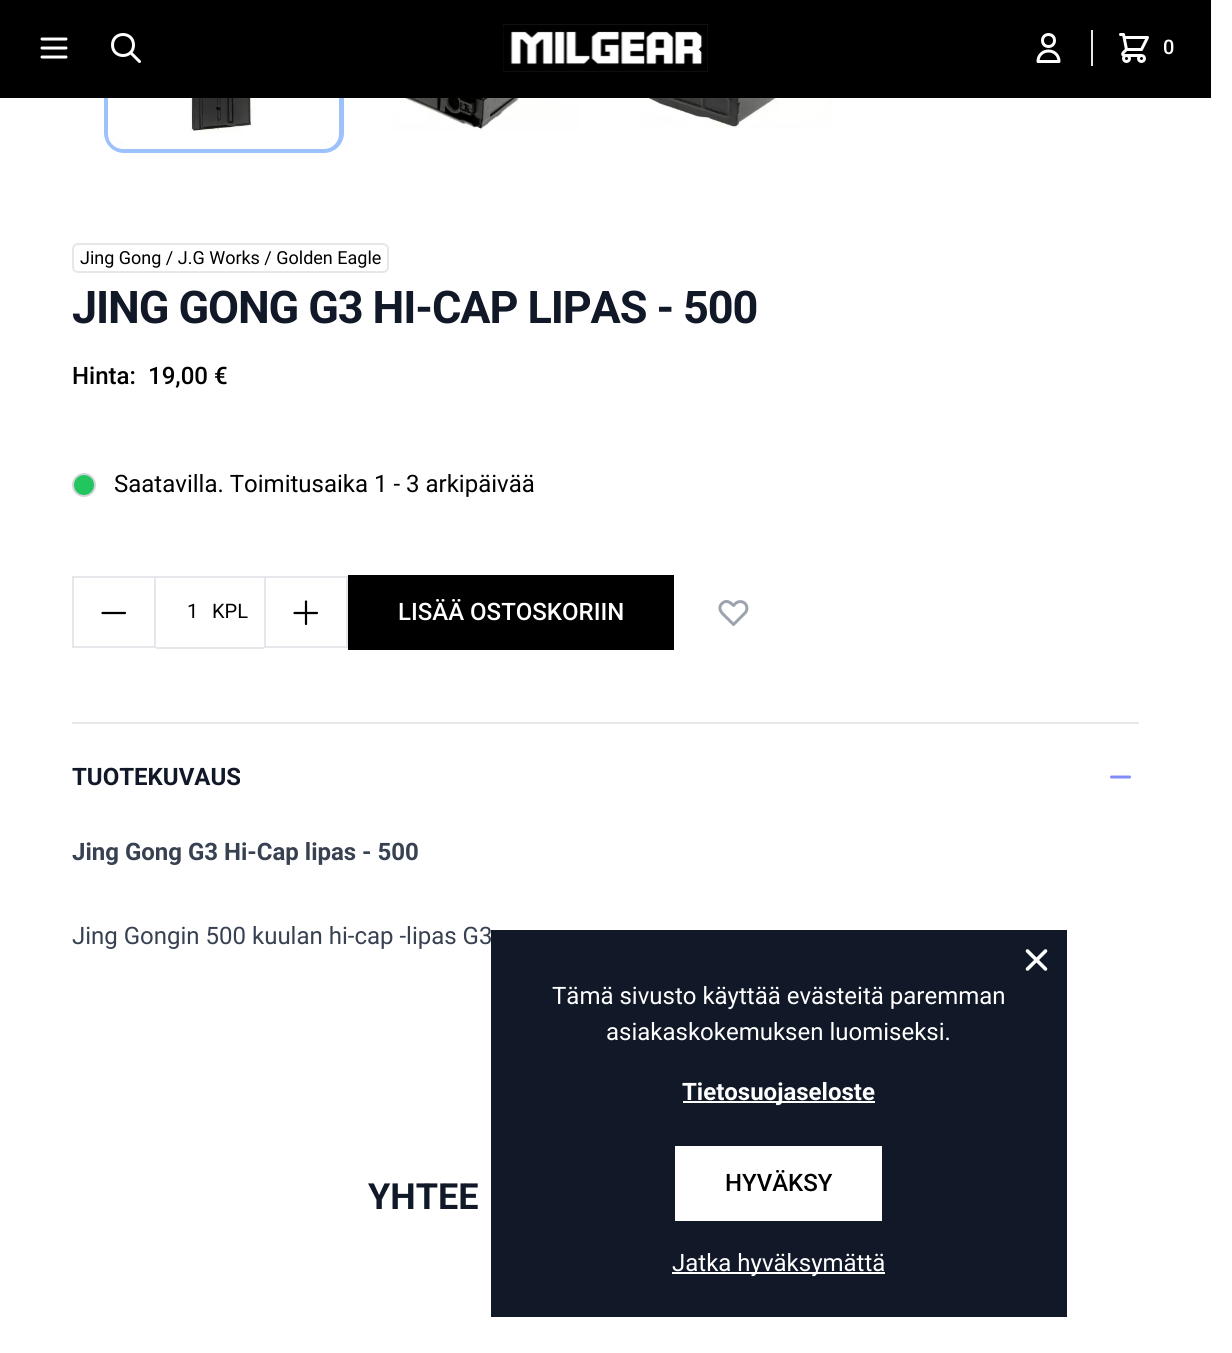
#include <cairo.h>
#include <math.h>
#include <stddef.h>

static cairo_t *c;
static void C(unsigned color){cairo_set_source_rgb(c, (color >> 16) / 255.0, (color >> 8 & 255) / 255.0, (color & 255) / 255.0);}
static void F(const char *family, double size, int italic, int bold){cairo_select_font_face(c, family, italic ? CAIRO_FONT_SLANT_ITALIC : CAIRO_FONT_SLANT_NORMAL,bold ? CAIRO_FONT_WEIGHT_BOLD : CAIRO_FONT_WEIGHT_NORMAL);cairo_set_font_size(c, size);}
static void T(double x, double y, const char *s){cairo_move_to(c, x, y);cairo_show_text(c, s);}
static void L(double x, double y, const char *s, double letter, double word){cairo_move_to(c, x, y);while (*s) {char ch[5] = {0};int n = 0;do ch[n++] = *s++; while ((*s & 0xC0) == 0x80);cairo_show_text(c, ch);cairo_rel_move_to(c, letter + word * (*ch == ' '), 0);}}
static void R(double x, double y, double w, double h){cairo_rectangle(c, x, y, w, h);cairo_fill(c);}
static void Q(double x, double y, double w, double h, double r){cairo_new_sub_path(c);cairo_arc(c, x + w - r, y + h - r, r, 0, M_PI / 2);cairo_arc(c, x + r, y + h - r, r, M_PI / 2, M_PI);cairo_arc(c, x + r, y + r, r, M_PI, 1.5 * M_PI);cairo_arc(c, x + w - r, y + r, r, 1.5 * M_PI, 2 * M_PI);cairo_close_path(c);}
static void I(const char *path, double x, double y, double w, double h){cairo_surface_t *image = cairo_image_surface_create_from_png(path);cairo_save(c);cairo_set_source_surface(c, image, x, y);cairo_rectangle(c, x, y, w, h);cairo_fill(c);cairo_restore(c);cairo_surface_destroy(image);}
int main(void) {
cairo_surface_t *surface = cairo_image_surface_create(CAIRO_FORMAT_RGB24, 1232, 1353);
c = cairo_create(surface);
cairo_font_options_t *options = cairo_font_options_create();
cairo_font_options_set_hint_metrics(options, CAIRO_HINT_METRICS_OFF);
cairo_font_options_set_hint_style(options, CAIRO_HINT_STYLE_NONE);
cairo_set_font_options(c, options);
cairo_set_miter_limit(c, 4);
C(0xffffff);
cairo_paint(c);
Q(109.5,-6.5,229,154,14.5);
C(0x9dc1fb);
cairo_set_line_width(c,11);
cairo_stroke(c);
Q(111,-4,225,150,12);
C(0xffffff);
cairo_set_line_width(c,6);
cairo_stroke(c);
Q(114,-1,219,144,9);
cairo_fill(c);
I("3.png",115,98,216,42);
Q(112.5,-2.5,222,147,10.5);
cairo_set_line_width(c,3);
cairo_stroke(c);
C(0x000000);
R(0,0,1211,98);
cairo_new_path(c);
cairo_move_to(c,42,39);
cairo_line_to(c,66,39);
cairo_move_to(c,42,48);
cairo_line_to(c,66,48);
cairo_move_to(c,42,57);
cairo_line_to(c,66,57);
C(0xffffff);
cairo_set_line_cap(c,CAIRO_LINE_CAP_ROUND);
cairo_set_line_join(c,CAIRO_LINE_JOIN_ROUND);
cairo_stroke(c);
cairo_new_path(c);
cairo_move_to(c,139.5,61.5);
cairo_line_to(c,130.5,52.5);
cairo_move_to(c,133.5,45);
cairo_curve_to(c,133.5,59,112.5,59,112.5,45);
cairo_curve_to(c,112.5,31,133.5,31,133.5,45);
cairo_close_path(c);
cairo_stroke(c);
I("1.png",503,24,205,48);
cairo_new_path(c);
cairo_move_to(c,1054.5,40.5);
cairo_curve_to(c,1054.5,48.5,1042.5,48.5,1042.5,40.5);
cairo_curve_to(c,1042.5,32.5,1054.5,32.5,1054.5,40.5);
cairo_close_path(c);
cairo_move_to(c,1048.5,51);
cairo_curve_to(c,1042.5,51,1038,55.5,1038,61.5);
cairo_line_to(c,1059,61.5);
cairo_curve_to(c,1059,55.5,1054.5,51,1048.5,51);
cairo_close_path(c);
cairo_stroke(c);
C(0xe5e7eb);
R(1091,30,2,36);
I("2.png",1119,33,30,30);
F("Roboto Medium",20,0,0);
C(0xffffff);
T(1163,54,"0");
I("4.png",392,98,188,33);
I("5.png",639,98,193,30);
Q(73,244,315,28,5);
C(0xe5e7eb);
cairo_set_line_width(c,2);
cairo_set_line_cap(c,CAIRO_LINE_CAP_BUTT);
cairo_set_line_join(c,CAIRO_LINE_JOIN_MITER);
cairo_stroke(c);
F("Roboto",18,0,0);
C(0x000000);
T(80,264,"Jing Gong / J.G Works / Golden Eagle");
F("Roboto",45,0,1);
C(0x111827);
L(72,323,"JING GONG G3 HI-CAP LIPAS - 500",-1.1,0);
F("Roboto Medium",24,0,0);
C(0x000000);
T(72,384,"Hinta:");
T(148,384,"19,00 €");
C(0x22c55e);
cairo_new_path(c);
cairo_arc(c,84,485,11,0,2 * M_PI);
cairo_fill_preserve(c);
C(0xd1d5db);
cairo_stroke(c);
F("Roboto",24,0,0);
C(0x000000);
T(114,492,"Saatavilla. Toimitusaika 1 - 3 arkipäivää");
cairo_rectangle(c,73,577,82,70);
C(0xe5e7eb);
cairo_stroke(c);
cairo_new_path(c);
cairo_move_to(c,125,613);
cairo_line_to(c,102.5,613);
C(0x000000);
cairo_set_line_width(c,2.2);
cairo_set_line_cap(c,CAIRO_LINE_CAP_ROUND);
cairo_set_line_join(c,CAIRO_LINE_JOIN_ROUND);
cairo_stroke(c);
C(0xe5e7eb);
R(156,576,108,2);
R(156,647,108,2);
F("Roboto",20,0,0);
C(0x000000);
T(187,618,"1");
T(212,618,"KPL");
cairo_rectangle(c,265,577,82,70);
C(0xe5e7eb);
cairo_set_line_width(c,2);
cairo_set_line_cap(c,CAIRO_LINE_CAP_BUTT);
cairo_set_line_join(c,CAIRO_LINE_JOIN_MITER);
cairo_stroke(c);
cairo_new_path(c);
cairo_move_to(c,306,601.5);
cairo_line_to(c,306,624);
cairo_move_to(c,317,613);
cairo_line_to(c,294.5,613);
C(0x000000);
cairo_set_line_width(c,2.2);
cairo_set_line_cap(c,CAIRO_LINE_CAP_ROUND);
cairo_set_line_join(c,CAIRO_LINE_JOIN_ROUND);
cairo_stroke(c);
R(348,575,326,75);
F("Roboto Medium",24,0,0);
C(0xffffff);
T(398,620,"LISÄÄ OSTOSKORIIN");
cairo_new_path(c);
cairo_move_to(c,722,603.5);
cairo_curve_to(c,717,608.5,722,613.5,726,617);
cairo_line_to(c,733.5,624.5);
cairo_line_to(c,745,613);
cairo_curve_to(c,747.5,610.5,747.5,606,745,603.5);
cairo_curve_to(c,742.5,601,738,601,735.5,603.5);
cairo_line_to(c,733.5,605.5);
cairo_curve_to(c,730,602,726,599.5,722,603.5);
cairo_close_path(c);
C(0x9ca3af);
cairo_set_line_width(c,3);
cairo_stroke(c);
C(0xe5e7eb);
R(72,722,1067,2);
F("Roboto",24,0,1);
C(0x111827);
T(72,785,"TUOTEKUVAUS");
cairo_new_path(c);
cairo_move_to(c,1129.5,777);
cairo_line_to(c,1111.5,777);
C(0x818cf8);
cairo_stroke(c);
C(0x374151);
T(72,860,"Jing Gong G3 Hi-Cap lipas - 500");
F("Roboto",24,0,0);
T(72,944,"Jing Gongin 500 kuulan hi-cap -lipas G3");
F("Roboto",36,0,1);
C(0x111827);
T(368,1209,"YHTEE");
R(491,930,576,387);
I("6.png",1025,949,23,22);
F("Roboto",24,0,0);
C(0xffffff);
T(552,1004,"Tämä sivusto käyttää evästeitä paremman");
T(606,1040,"asiakaskokemuksen luomiseksi.");
R(683,1101,192,2);
F("Roboto",24,0,1);
T(682,1100,"Tietosuojaseloste");
R(675,1146,207,75);
F("Roboto Medium",24,0,0);
C(0x000000);
T(725,1191,"HYVÄKSY");
C(0xffffff);
R(672,1272,213,2);
F("Roboto",24,0,0);
T(672,1271,"Jatka hyväksymättä");
cairo_surface_write_to_png(surface, "o.png");
cairo_font_options_destroy(options);
cairo_destroy(c);
cairo_surface_destroy(surface);
return 0;
}
